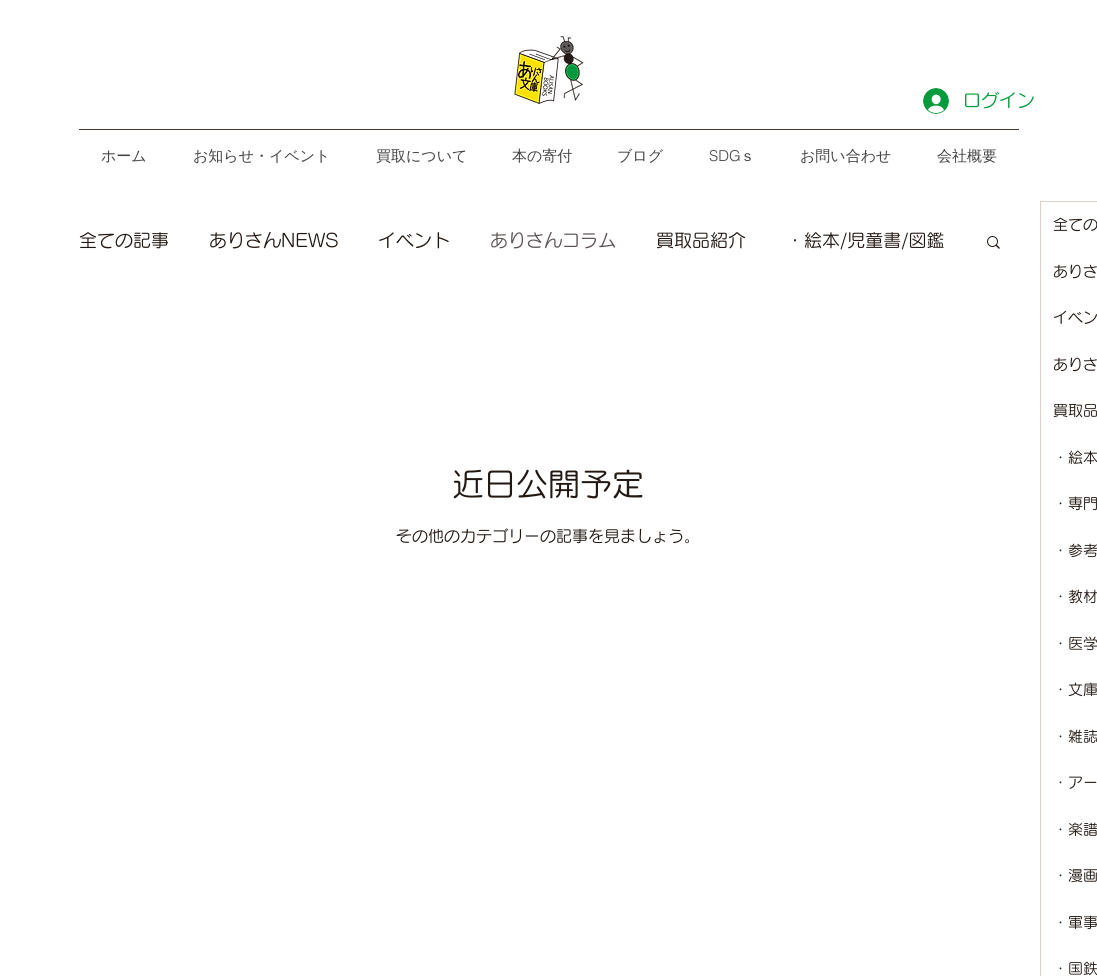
#include <cairo.h>
#include <math.h>
#include <stddef.h>

static cairo_t *c;
static void C(unsigned color){cairo_set_source_rgb(c, (color >> 16) / 255.0, (color >> 8 & 255) / 255.0, (color & 255) / 255.0);}
static void F(const char *family, double size, int italic, int bold){cairo_select_font_face(c, family, italic ? CAIRO_FONT_SLANT_ITALIC : CAIRO_FONT_SLANT_NORMAL,bold ? CAIRO_FONT_WEIGHT_BOLD : CAIRO_FONT_WEIGHT_NORMAL);cairo_set_font_size(c, size);}
static void T(double x, double y, const char *s){cairo_move_to(c, x, y);cairo_show_text(c, s);}
static void R(double x, double y, double w, double h){cairo_rectangle(c, x, y, w, h);cairo_fill(c);}
static void I(const char *path, double x, double y, double w, double h){cairo_surface_t *image = cairo_image_surface_create_from_png(path);cairo_save(c);cairo_set_source_surface(c, image, x, y);cairo_rectangle(c, x, y, w, h);cairo_fill(c);cairo_restore(c);cairo_surface_destroy(image);}
int main(void) {
cairo_surface_t *surface = cairo_image_surface_create(CAIRO_FORMAT_RGB24, 1097, 976);
c = cairo_create(surface);
cairo_font_options_t *options = cairo_font_options_create();
cairo_font_options_set_hint_metrics(options, CAIRO_HINT_METRICS_OFF);
cairo_font_options_set_hint_style(options, CAIRO_HINT_STYLE_NONE);
cairo_set_font_options(c, options);
cairo_set_miter_limit(c, 4);
C(0xffffff);
cairo_paint(c);
I("1.png",514,36,70,68);
I("2.png",923,88,26,26);
F("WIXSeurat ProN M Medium",18,0,0);
C(0x049b3c);
T(963,107,"ログイン");
C(0x433b36);
R(79,129,940,1);
F("WenQuanYi Zen Hei Medium",15,0,0);
C(0x444444);
T(101,161,"ホーム");
T(193,161,"お知らせ・イベント");
T(376,161,"買取について");
T(512,161,"本の寄付");
T(617,161,"ブログ");
F("helvetica Light",15,0,0);
T(709,161,"SDG");
F("WenQuanYi Zen Hei Medium",15,0,0);
T(740,161,"ｓ");
T(800,161,"お問い合わせ");
T(937,161,"会社概要");
F("WIXSeurat ProN M Medium",18,0,0);
C(0x221813);
T(79,247,"全ての記事");
T(209,247,"ありさんNEWS");
T(378,247,"イベント");
C(0x5b5353);
T(490,247,"ありさんコラム");
C(0x221813);
T(656,247,"買取品紹介");
T(786,247,"・絵本/児童書/図鑑");
I("3.png",987,236,13,13);
F("WIXSeurat ProN M Medium",32,0,0);
T(452,496,"近日公開予定");
F("WIXSeurat ProN M Medium",16,0,0);
T(396,542,"その他のカテゴリーの記事を見ましょう。");
cairo_rectangle(c,1040.5,201.5,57,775);
C(0xe0d0c8);
cairo_set_line_width(c,1);
cairo_stroke(c);
F("WIXSeurat ProN M Medium",15,0,0);
C(0x221813);
T(1053,230,"全ての");
T(1053,277,"ありさ");
T(1053,323,"イベン");
T(1053,370,"ありさ");
T(1053,416,"買取品");
T(1053,463,"・絵本");
T(1053,509,"・専門");
T(1053,556,"・参考");
T(1053,602,"・教材");
T(1053,649,"・医学");
T(1053,695,"・文庫");
T(1053,742,"・雑誌");
T(1053,788,"・アー");
T(1053,835,"・楽譜");
T(1053,881,"・漫画");
T(1053,928,"・軍事");
T(1053,974,"・国鉄");
cairo_surface_write_to_png(surface, "o.png");
cairo_font_options_destroy(options);
cairo_destroy(c);
cairo_surface_destroy(surface);
return 0;
}
